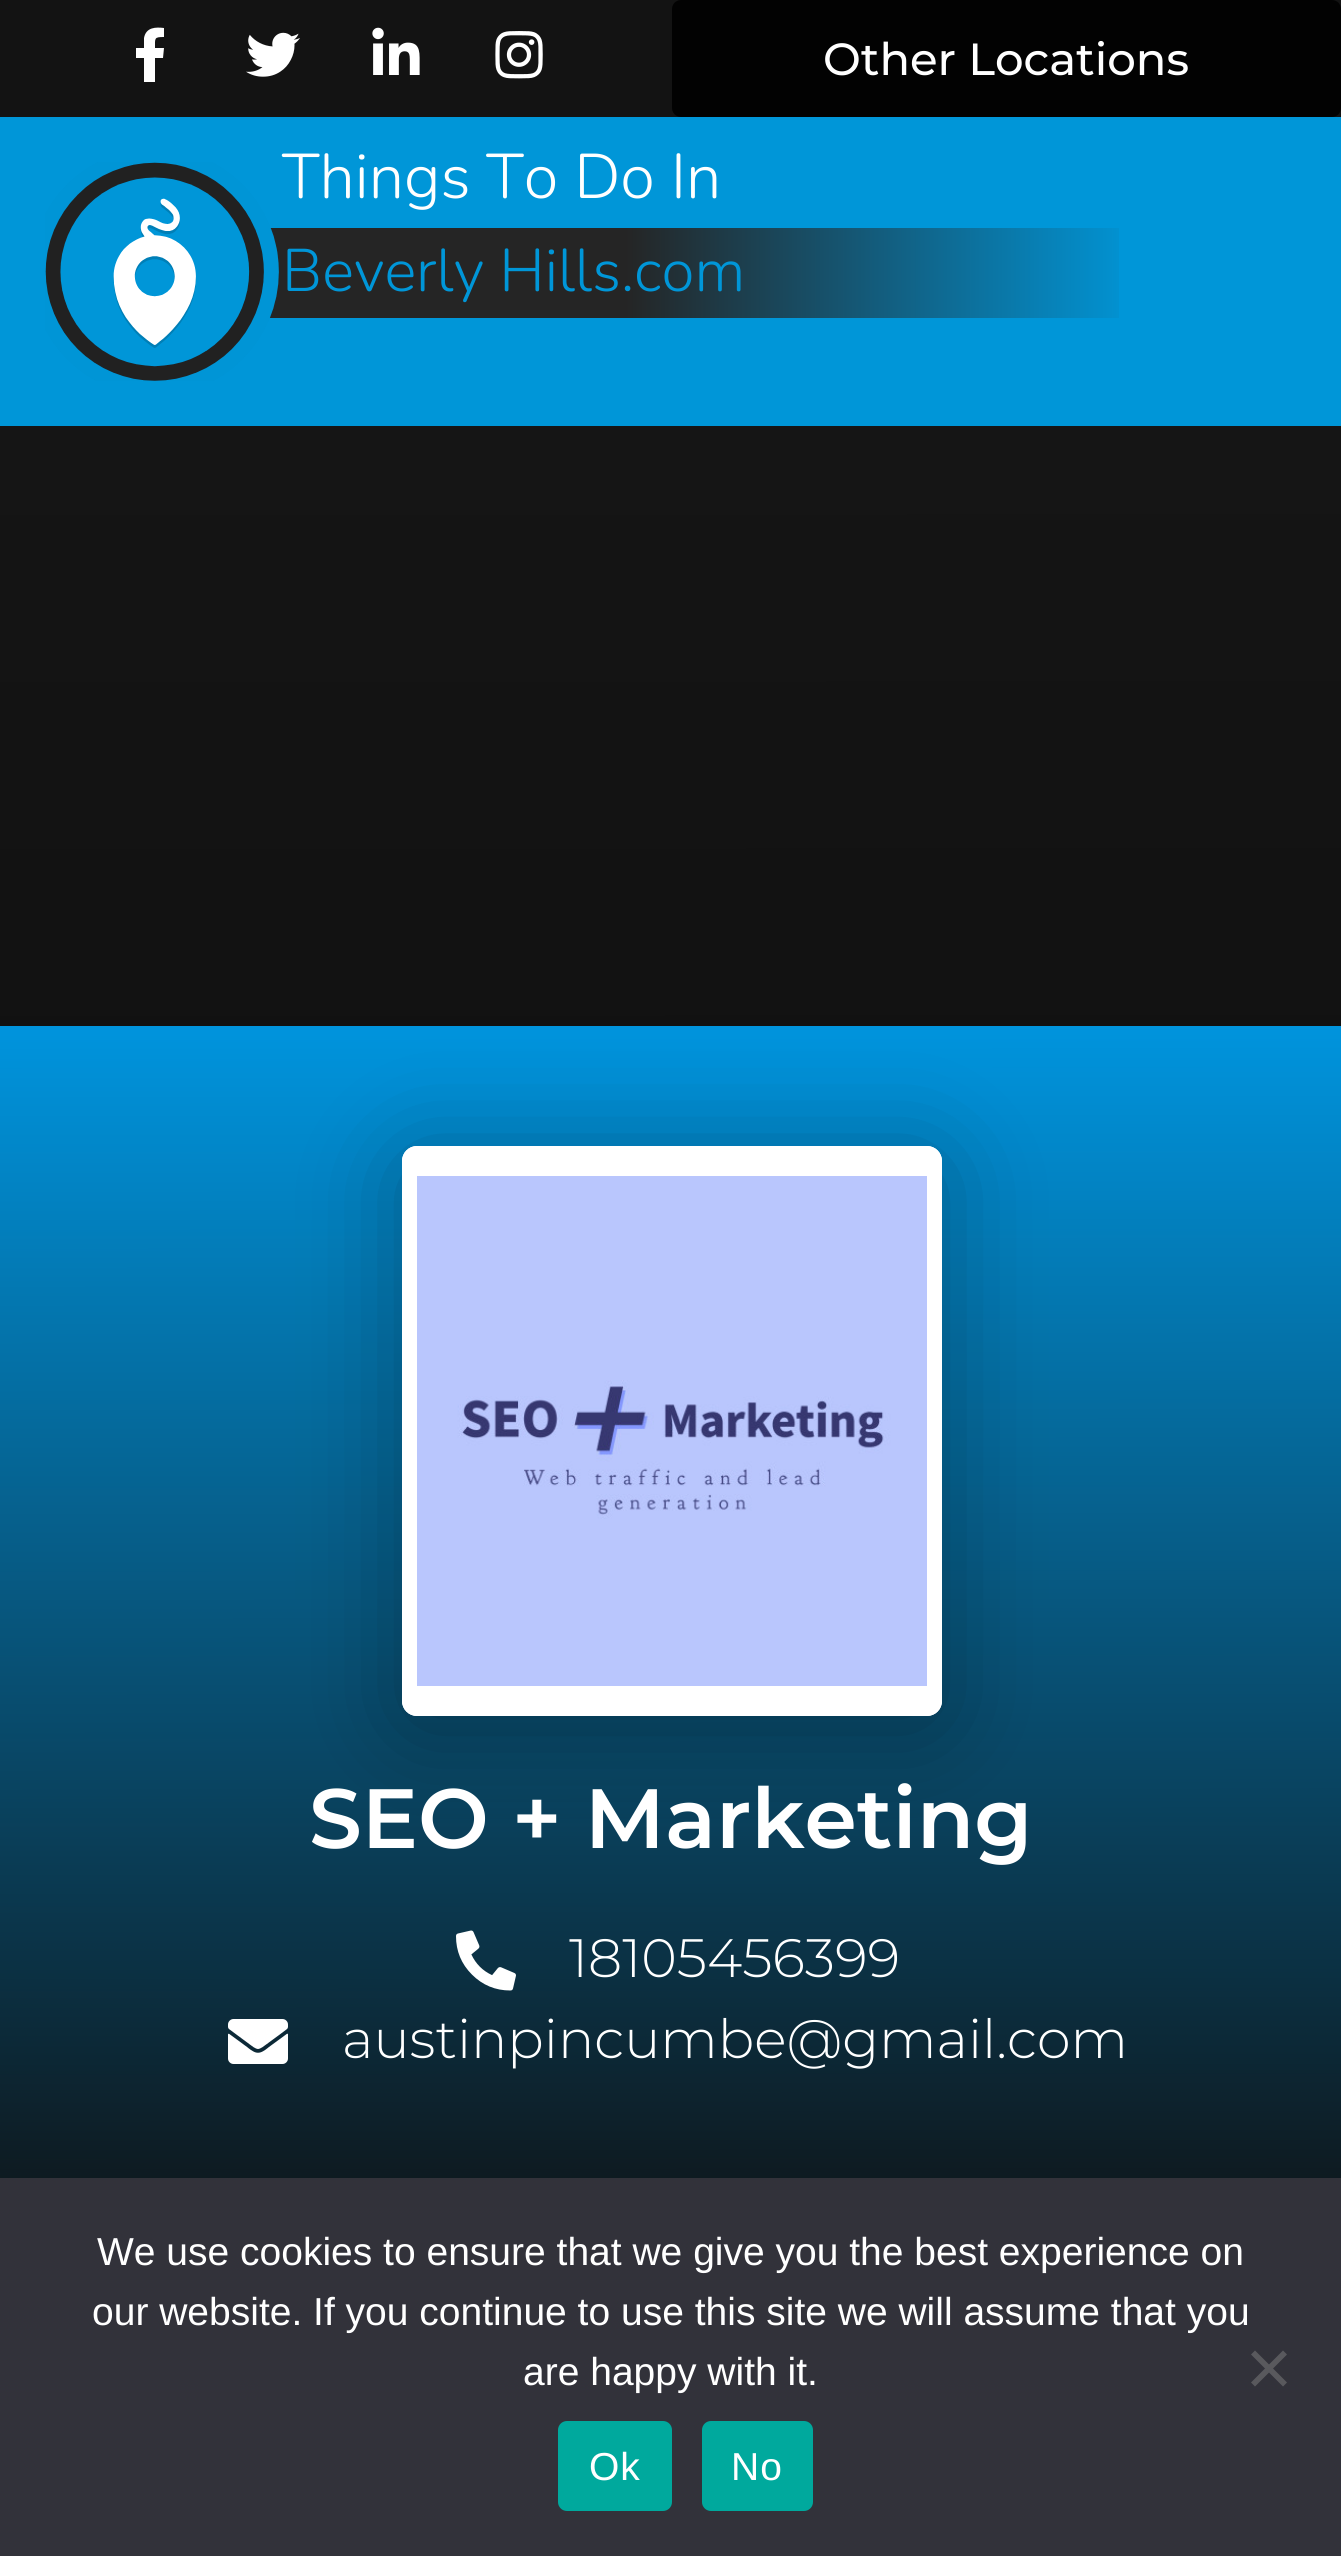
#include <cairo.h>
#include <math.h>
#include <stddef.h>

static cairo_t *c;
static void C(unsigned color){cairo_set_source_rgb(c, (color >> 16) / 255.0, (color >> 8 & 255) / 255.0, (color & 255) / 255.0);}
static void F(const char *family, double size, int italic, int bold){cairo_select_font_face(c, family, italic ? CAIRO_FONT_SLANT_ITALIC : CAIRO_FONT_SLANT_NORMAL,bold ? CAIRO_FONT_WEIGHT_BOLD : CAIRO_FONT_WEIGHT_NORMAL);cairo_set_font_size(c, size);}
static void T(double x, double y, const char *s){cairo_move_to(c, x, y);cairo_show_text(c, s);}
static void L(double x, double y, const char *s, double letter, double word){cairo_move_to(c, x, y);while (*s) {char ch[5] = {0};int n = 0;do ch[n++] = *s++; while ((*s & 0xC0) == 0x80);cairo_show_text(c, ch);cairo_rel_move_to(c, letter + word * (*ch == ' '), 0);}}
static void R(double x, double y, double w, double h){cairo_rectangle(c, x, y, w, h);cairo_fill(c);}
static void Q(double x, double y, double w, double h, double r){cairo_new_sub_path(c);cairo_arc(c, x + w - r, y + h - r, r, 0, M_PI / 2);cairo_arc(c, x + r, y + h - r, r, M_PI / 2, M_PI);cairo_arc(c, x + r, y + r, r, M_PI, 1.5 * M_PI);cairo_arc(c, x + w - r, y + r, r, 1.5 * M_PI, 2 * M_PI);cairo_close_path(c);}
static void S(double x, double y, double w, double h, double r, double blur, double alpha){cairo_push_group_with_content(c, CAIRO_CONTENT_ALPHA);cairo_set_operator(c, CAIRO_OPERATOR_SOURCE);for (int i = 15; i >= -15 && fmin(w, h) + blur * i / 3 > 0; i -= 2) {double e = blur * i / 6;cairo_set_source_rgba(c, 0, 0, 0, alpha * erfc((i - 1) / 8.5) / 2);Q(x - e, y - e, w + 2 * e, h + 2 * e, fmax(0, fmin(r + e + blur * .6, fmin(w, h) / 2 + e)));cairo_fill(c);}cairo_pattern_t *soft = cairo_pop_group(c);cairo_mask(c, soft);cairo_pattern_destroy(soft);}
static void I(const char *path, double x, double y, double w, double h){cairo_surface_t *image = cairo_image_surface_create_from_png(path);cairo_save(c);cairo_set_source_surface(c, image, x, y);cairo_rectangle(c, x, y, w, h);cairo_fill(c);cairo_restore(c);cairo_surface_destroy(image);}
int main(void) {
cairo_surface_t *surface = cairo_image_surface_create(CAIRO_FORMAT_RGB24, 1341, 2556);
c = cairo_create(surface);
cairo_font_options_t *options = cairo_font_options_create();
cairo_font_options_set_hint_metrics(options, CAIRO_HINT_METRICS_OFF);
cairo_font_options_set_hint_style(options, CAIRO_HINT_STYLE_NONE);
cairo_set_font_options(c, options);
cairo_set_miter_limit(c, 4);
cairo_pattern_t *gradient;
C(0xffffff);
cairo_paint(c);
C(0x131313);
R(0,0,1341,117);
C(0xffffff);
cairo_new_path(c);
cairo_move_to(c,163,58);
cairo_line_to(c,155,58);
cairo_line_to(c,155,82);
cairo_line_to(c,144,82);
cairo_line_to(c,144,58);
cairo_line_to(c,136,58);
cairo_line_to(c,136,48);
cairo_line_to(c,144,48);
cairo_line_to(c,144,38);
cairo_curve_to(c,146,27,156,27,164,28);
cairo_line_to(c,164,37);
cairo_curve_to(c,154,37,155,38,155,48);
cairo_line_to(c,164,48);
cairo_close_path(c);
cairo_fill(c);
I("1.png",246,32,54,45);
I("2.png",372,27,48,48);
I("3.png",495,31,48,48);
C(0x020202);
Q(672,0,669,117,9);
cairo_fill(c);
F("Montserrat Medium",45,0,0);
C(0xffffff);
T(823,75,"Other Locations");
C(0x0096d8);
R(0,117,1341,309);
gradient = cairo_pattern_create_linear(222,273,1119,273);
cairo_pattern_add_color_stop_rgba(gradient,.45,0.145,0.145,0.145,1);
cairo_pattern_add_color_stop_rgba(gradient,1,0.008,0.569,0.816,1);
cairo_set_source(c,gradient);
cairo_pattern_destroy(gradient);
R(269,228,850,90);
I("4.png",45,162,234,219);
F("Nunito Light",63,0,0);
C(0xffffff);
T(282,198,"Things To Do In");
F("Nunito Light",60,0,0);
C(0x0096d8);
T(282,291,"Beverly Hills.com");
gradient = cairo_pattern_create_linear(670,276,671,1425);
cairo_pattern_add_color_stop_rgba(gradient,0,0.086,0.086,0.086,1);
cairo_pattern_add_color_stop_rgba(gradient,1,0.059,0.059,0.059,1);
cairo_set_source(c,gradient);
cairo_pattern_destroy(gradient);
R(0,426,1341,600);
gradient = cairo_pattern_create_linear(670,1026,671,2202);
cairo_pattern_add_color_stop_rgba(gradient,0,0,0.58,0.867,1);
cairo_pattern_add_color_stop_rgba(gradient,1,0.055,0.094,0.114,1);
cairo_set_source(c,gradient);
cairo_pattern_destroy(gradient);
R(0,1026,1341,1152);
C(0x000000);
S(402,1158,540,570,15,49.5,.3);
C(0xffffff);
Q(402,1146,540,570,15);
cairo_fill(c);
I("5.png",417,1176,510,510);
Q(409.5,1153.5,525,555,7.5);
cairo_set_line_width(c,15);
cairo_stroke(c);
F("Montserrat SemiBold",84,0,0);
T(309,1848,"SEO + Marketing");
I("6.png",456,1930,60,61);
F("Montserrat Light",54,0,0);
T(569,1977,"18105456399");
I("7.png",228,2019,60,45);
T(342,2058,"austinpincumbe@gmail.com");
C(0x32323a);
R(0,2178,1341,378);
F("Liberation Sans",39,0,0);
C(0xffffff);
T(97,2265,"We use cookies to ensure that we give you the best experience on");
T(92,2325,"our website. If you continue to use this site we will assume that you");
T(523,2385,"are happy with it.");
C(0x59595d);
cairo_new_path(c);
cairo_move_to(c,1283,2350.5);
cairo_line_to(c,1287,2354.5);
cairo_line_to(c,1255,2386.5);
cairo_line_to(c,1251,2382.5);
cairo_close_path(c);
cairo_fill(c);
cairo_new_path(c);
cairo_move_to(c,1251,2354.5);
cairo_line_to(c,1255,2350.5);
cairo_line_to(c,1287,2382.5);
cairo_line_to(c,1283,2386.5);
cairo_close_path(c);
cairo_fill(c);
C(0x00a99d);
Q(558,2421,114,90,9);
cairo_fill(c);
C(0xffffff);
L(589,2480,"Ok",1,0);
C(0x00a99d);
Q(702,2421,111,90,9);
cairo_fill(c);
C(0xffffff);
L(731,2480,"No",1,0);
cairo_surface_write_to_png(surface, "o.png");
cairo_font_options_destroy(options);
cairo_destroy(c);
cairo_surface_destroy(surface);
return 0;
}
